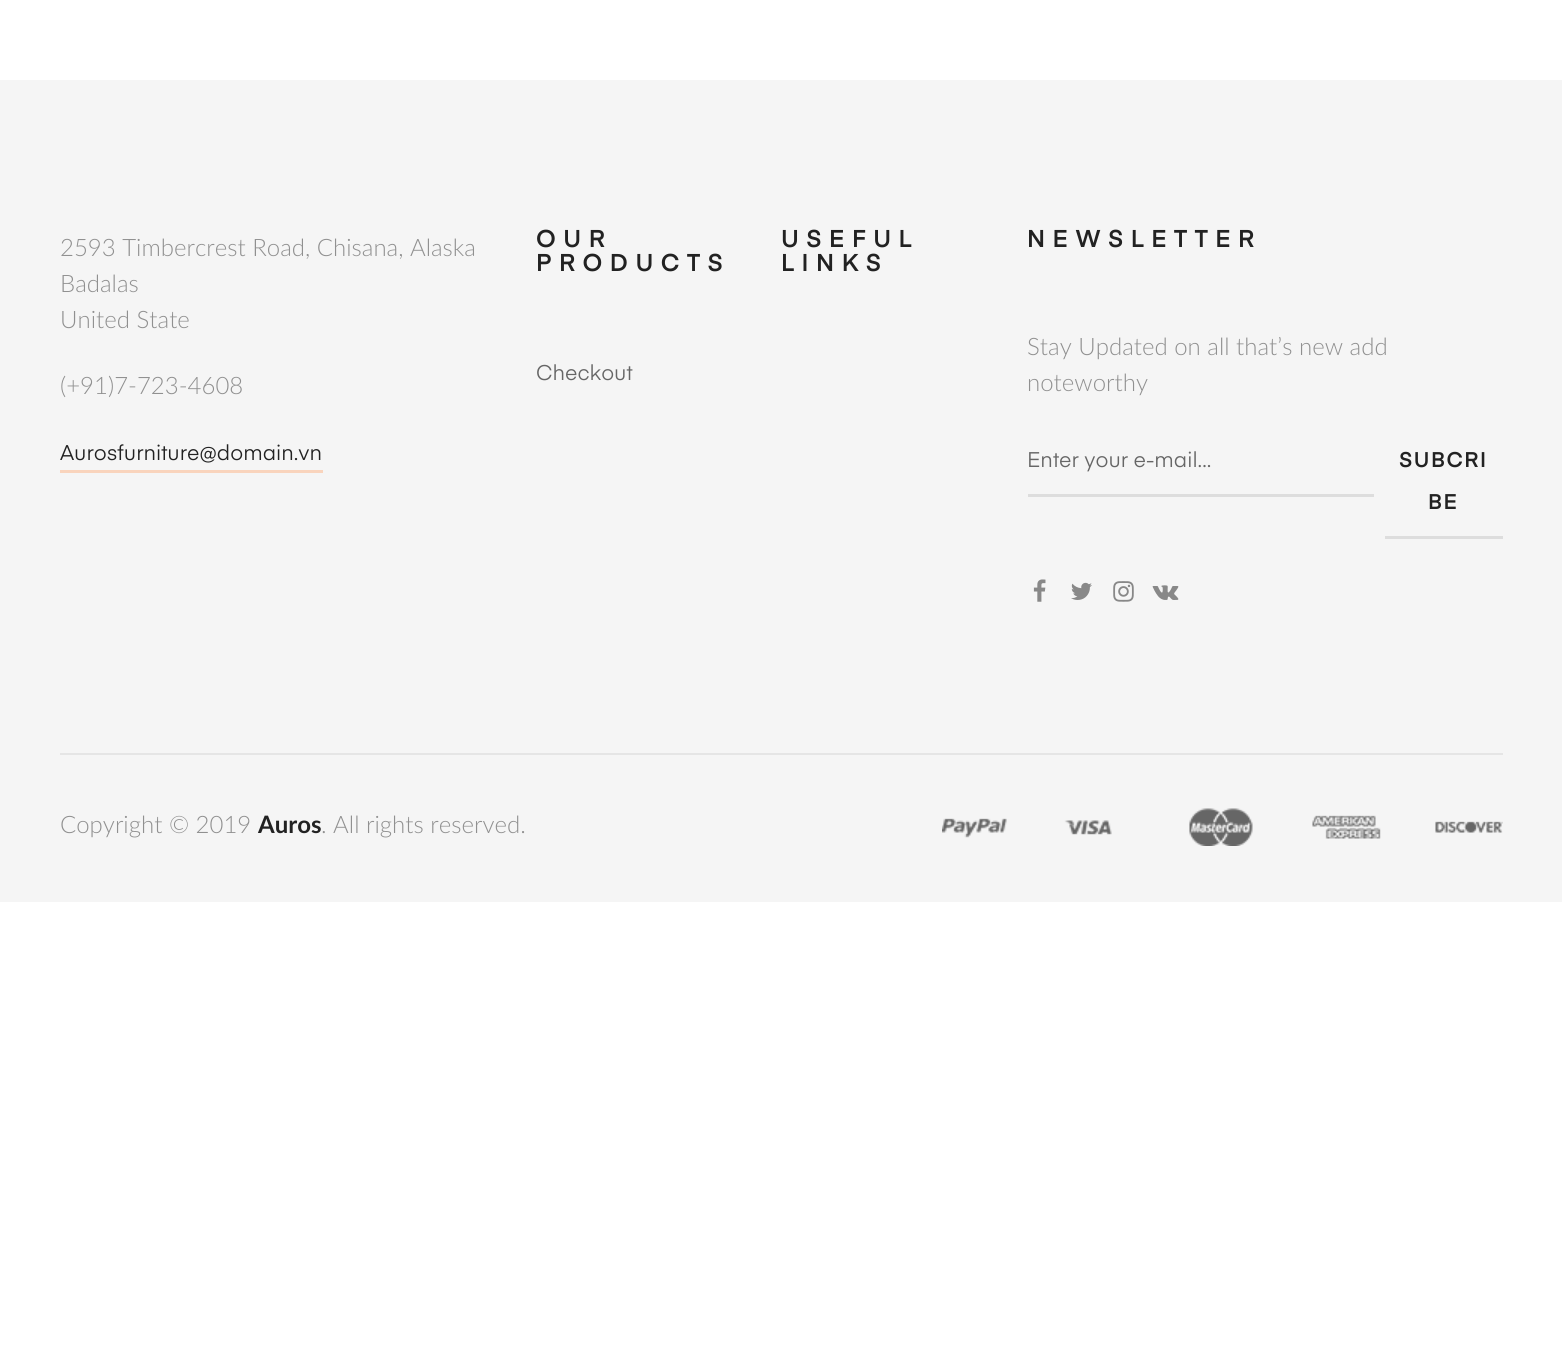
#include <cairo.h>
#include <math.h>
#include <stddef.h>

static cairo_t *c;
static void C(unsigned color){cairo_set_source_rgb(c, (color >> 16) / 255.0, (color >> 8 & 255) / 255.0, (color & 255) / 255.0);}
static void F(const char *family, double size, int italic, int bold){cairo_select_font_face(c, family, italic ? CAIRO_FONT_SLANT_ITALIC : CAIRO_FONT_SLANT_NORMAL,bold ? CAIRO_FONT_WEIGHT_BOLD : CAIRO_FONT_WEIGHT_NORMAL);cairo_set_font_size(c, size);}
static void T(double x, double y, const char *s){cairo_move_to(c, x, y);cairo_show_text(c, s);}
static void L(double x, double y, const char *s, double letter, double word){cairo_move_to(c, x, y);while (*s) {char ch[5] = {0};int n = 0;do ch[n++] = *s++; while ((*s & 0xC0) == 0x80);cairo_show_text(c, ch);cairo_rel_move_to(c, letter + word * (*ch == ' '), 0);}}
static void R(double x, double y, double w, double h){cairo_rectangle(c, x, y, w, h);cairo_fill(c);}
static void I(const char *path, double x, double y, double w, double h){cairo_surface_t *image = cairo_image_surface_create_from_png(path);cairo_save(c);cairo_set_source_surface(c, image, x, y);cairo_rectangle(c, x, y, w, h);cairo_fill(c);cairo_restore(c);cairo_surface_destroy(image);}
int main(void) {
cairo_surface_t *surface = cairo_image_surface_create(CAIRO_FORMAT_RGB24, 1562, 1363);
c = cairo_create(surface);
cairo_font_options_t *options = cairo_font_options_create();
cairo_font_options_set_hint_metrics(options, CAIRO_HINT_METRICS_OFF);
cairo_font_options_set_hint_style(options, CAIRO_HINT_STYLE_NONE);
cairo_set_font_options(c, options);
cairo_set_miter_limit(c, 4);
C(0xffffff);
cairo_paint(c);
C(0xf5f5f5);
R(0,80,1562,822);
F("Lato Light",24,0,0);
C(0x909090);
T(60,256,"2593 Timbercrest Road, Chisana, Alaska");
T(60,292,"Badalas");
T(60,328,"United State");
T(60,394,"(+91)7-723-4608");
C(0xf9d4bd);
R(60,470,263,3);
F("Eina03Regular",21,0,0);
C(0x222222);
T(60,460,"Aurosfurniture@domain.vn");
F("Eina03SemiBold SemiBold",24,0,0);
L(536,247,"OUR",7.5,0);
L(536,271,"PRODUCTS",7.5,0);
F("Eina03Regular",21,0,0);
C(0x666666);
T(536,380,"Checkout");
F("Eina03SemiBold SemiBold",24,0,0);
C(0x222222);
L(781,247,"USEFUL",7.5,0);
L(781,271,"LINKS",7.5,0);
L(1027,247,"NEWSLETTER",7.5,0);
F("Lato Light",24,0,0);
C(0x909090);
T(1027,355,"Stay Updated on all that’s new add");
T(1027,391,"noteworthy");
C(0xdddddd);
R(1028,494,346,3);
F("Eina03Regular",21,0,0);
C(0x666666);
T(1027,467,"Enter your e-mail...");
C(0xdddddd);
R(1385,536,118,3);
F("Eina03SemiBold SemiBold",21,0,0);
C(0x222222);
L(1399,467,"SUBCRI",1.5,0);
L(1428,509,"BE",1.5,0);
I("1.png",1033,579,13,23);
I("2.png",1071,582,21,18);
I("3.png",1113,581,21,21);
I("4.png",1152,585,27,15);
C(0xe5e5e5);
R(60,753,1443,2);
F("Lato Light",24,0,0);
C(0x909090);
T(60,833,"Copyright © 2019");
F("Lato",24,0,1);
C(0x222222);
T(258,833,"Auros");
F("Lato Light",24,0,0);
C(0x909090);
T(321,833,". All rights reserved.");
I("5.png",942,808,561,38);
cairo_surface_write_to_png(surface, "o.png");
cairo_font_options_destroy(options);
cairo_destroy(c);
cairo_surface_destroy(surface);
return 0;
}
